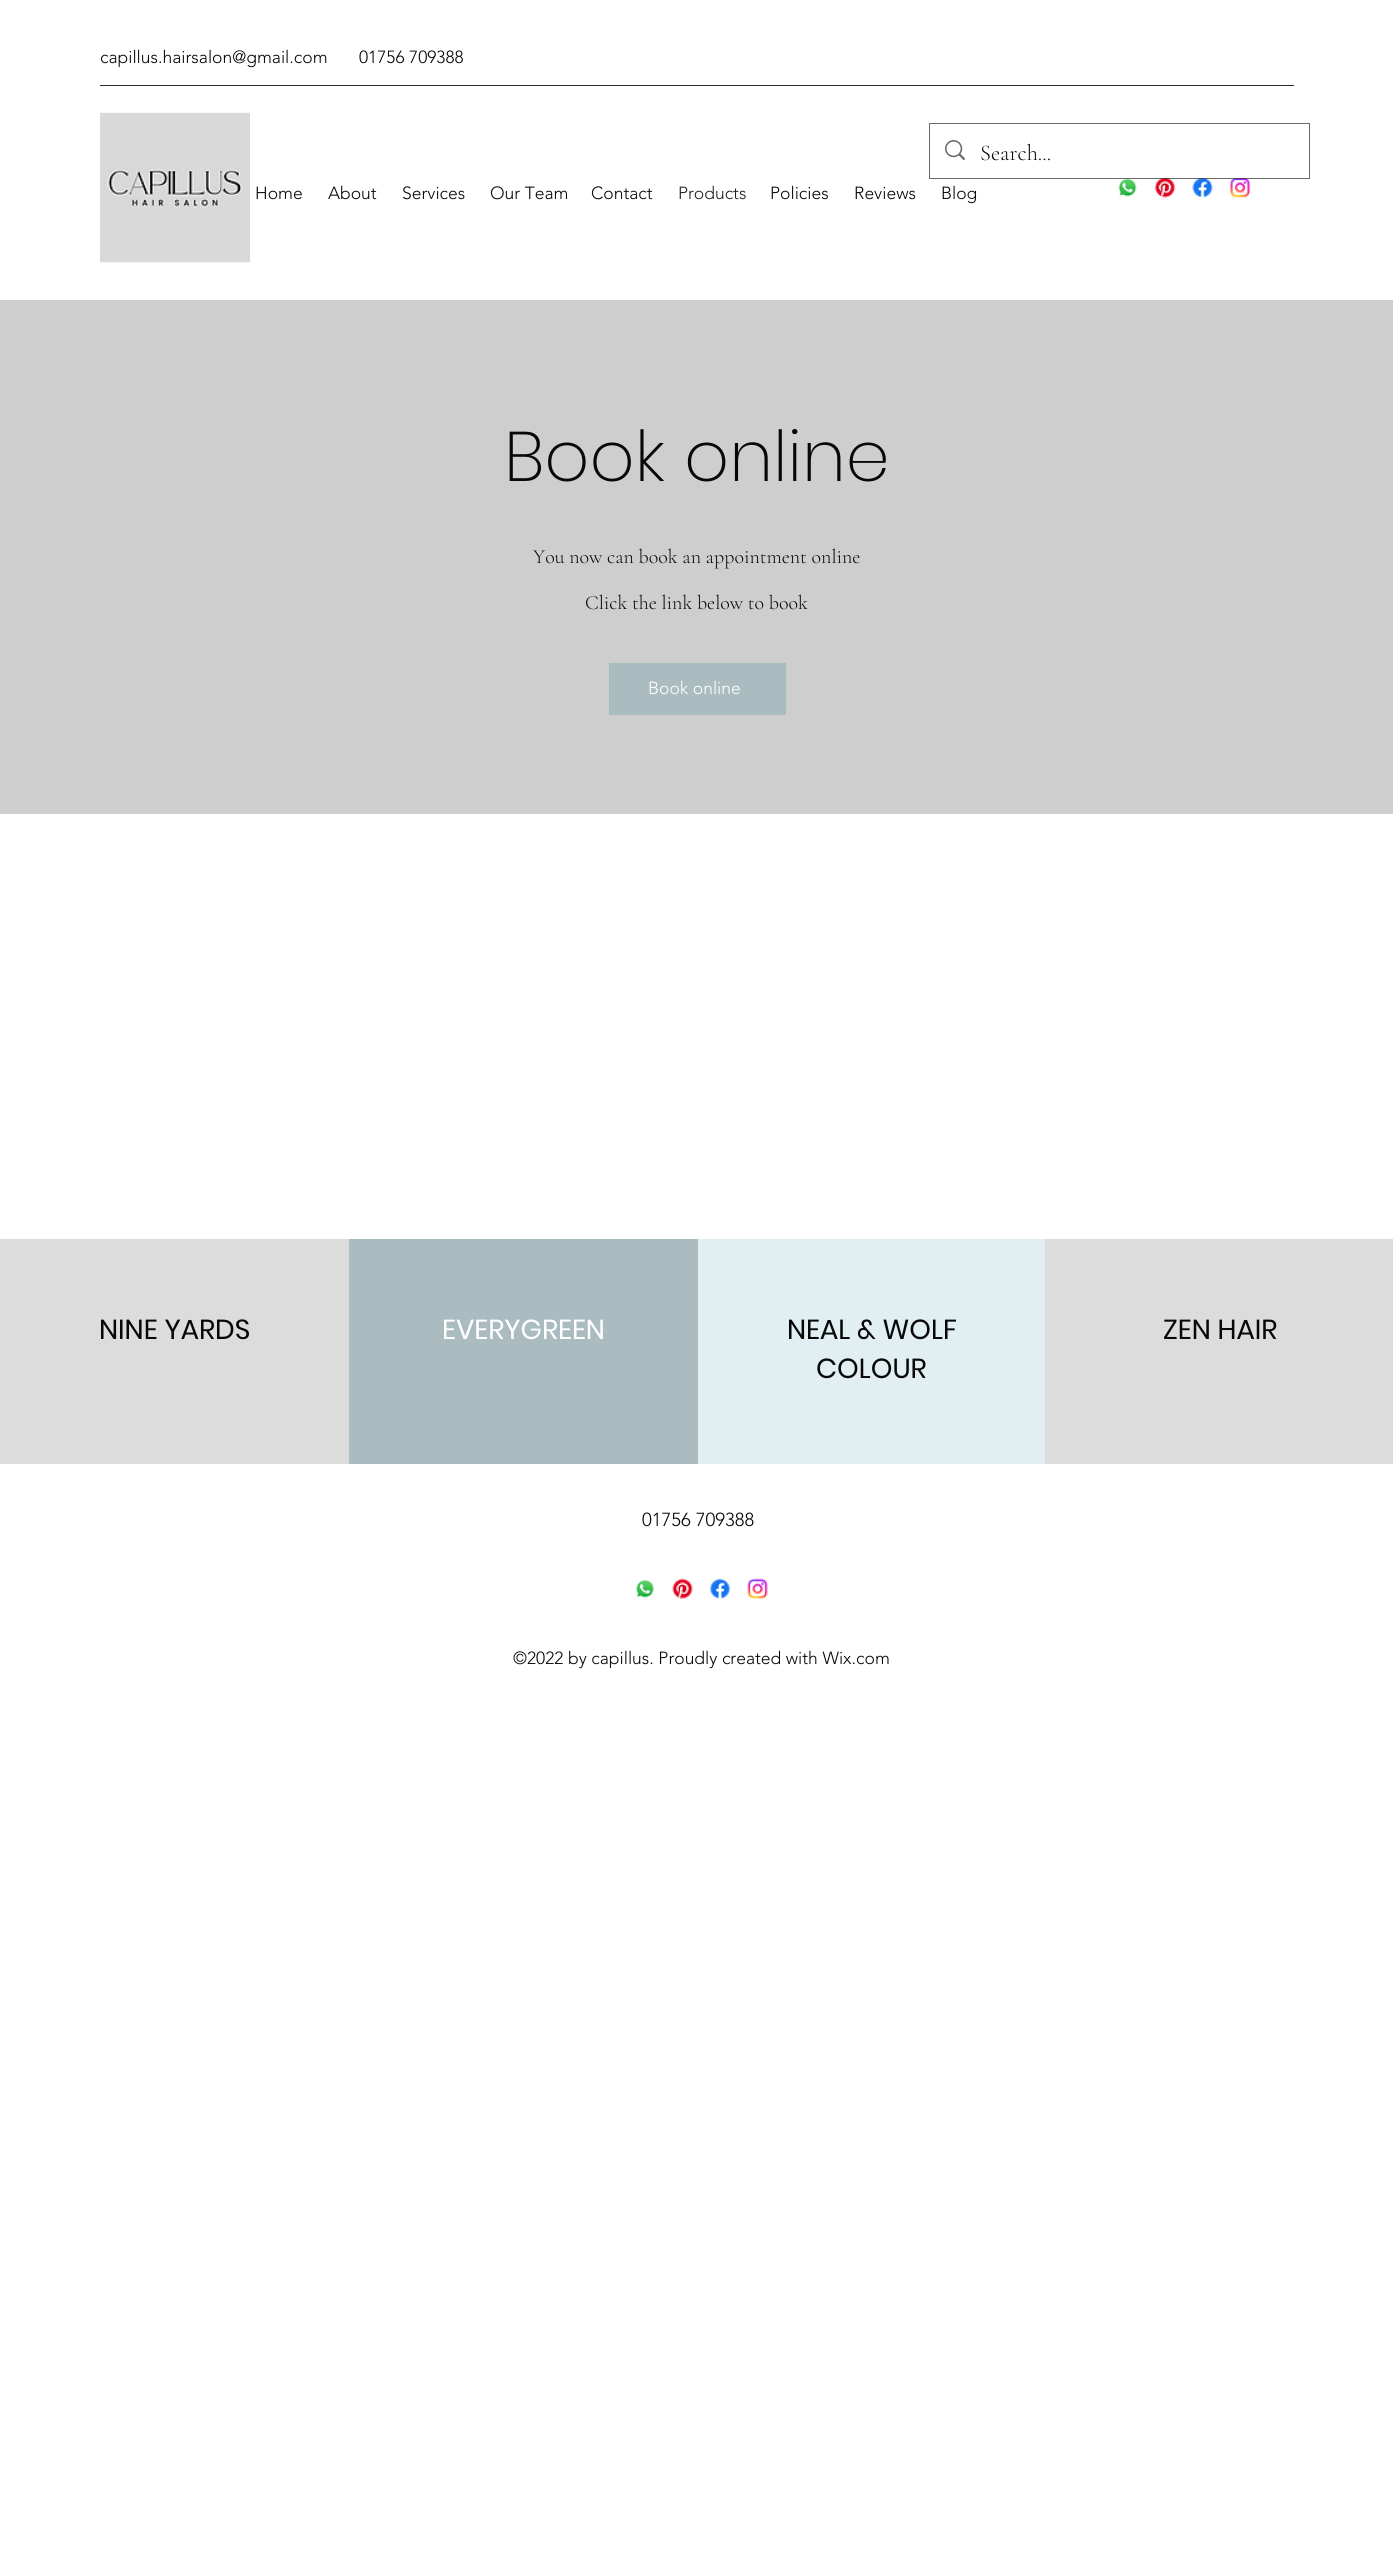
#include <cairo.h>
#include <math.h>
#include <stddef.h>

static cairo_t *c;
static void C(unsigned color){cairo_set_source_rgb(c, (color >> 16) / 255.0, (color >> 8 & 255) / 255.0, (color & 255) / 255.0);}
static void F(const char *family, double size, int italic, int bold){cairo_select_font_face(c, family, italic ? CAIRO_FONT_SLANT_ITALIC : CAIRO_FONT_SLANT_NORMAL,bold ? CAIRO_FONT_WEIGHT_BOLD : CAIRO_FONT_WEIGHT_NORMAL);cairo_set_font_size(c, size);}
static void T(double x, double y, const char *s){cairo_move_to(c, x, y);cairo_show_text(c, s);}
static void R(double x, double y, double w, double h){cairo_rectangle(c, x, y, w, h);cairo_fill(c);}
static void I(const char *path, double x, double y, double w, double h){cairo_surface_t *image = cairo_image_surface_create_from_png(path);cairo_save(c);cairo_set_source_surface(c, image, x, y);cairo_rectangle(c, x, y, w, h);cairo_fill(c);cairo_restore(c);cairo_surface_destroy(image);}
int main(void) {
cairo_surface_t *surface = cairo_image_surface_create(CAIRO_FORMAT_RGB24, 1393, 2561);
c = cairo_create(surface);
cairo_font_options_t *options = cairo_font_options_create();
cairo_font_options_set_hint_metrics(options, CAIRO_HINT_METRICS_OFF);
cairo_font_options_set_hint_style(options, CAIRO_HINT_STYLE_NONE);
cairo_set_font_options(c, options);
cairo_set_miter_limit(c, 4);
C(0xffffff);
cairo_paint(c);
F("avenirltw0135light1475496 Light",17.5,0,0);
C(0x070707);
T(100,63,"capillus.hairsalon@gmail.com");
T(359,63,"01756 709388");
C(0x2c2c2c);
R(100,85,1194,1);
I("3.png",1118,178,19,19);
I("4.png",1154,178,22,20);
I("5.png",1192,178,21,20);
I("6.png",1229,178,22,20);
cairo_rectangle(c,929.5,123.5,380,55);
cairo_set_source_rgba(c,0.027,0.027,0.027,0.6);
cairo_set_line_width(c,1);
cairo_stroke(c);
I("1.png",945,140,20,21);
F("Cormorant Garamond Light",22.5,0,0);
C(0x070707);
T(980,160,"Search...");
I("2.png",100,112,150,151);
F("avenirltw0135light1475496 Light",17.5,0,0);
T(255,199,"Home");
T(328,199,"About");
T(402,199,"Services");
T(490,199,"Our Team");
T(591,199,"Contact");
C(0x212121);
T(678,199,"Products");
C(0x070707);
T(770,199,"Policies");
T(854,199,"Reviews");
T(941,199,"Blog");
C(0xcecece);
R(0,300,1393,514);
F("Poppins ExtraLight",70,0,0);
C(0x070707);
T(504,481,"Book online");
F("Cormorant Garamond Light",20,0,0);
T(533,563,"You now can book an appointment online");
T(585,609,"Click the link below to book");
C(0xaabcbf);
R(609,663,177,52);
F("avenirltw0135light1475496 Light",17.5,0,0);
C(0xffffff);
T(648,694,"Book online");
C(0xdcdcdc);
R(0,1239,349,225);
F("Poppins",27.5,0,0);
C(0x070707);
T(99,1339,"NINE YARDS");
C(0xaabcbf);
R(349,1239,349,225);
C(0xffffff);
T(442,1339,"EVERYGREEN");
C(0xe1eff2);
R(698,1239,347,225);
C(0x070707);
T(787,1339,"NEAL & WOLF");
T(816,1378,"COLOUR");
C(0xdcdcdc);
R(1045,1239,348,225);
C(0x070707);
T(1163,1339,"ZEN HAIR");
F("avenirltw0135light1475496 Light",18.75,0,0);
T(642,1526,"01756 709388");
I("7.png",635,1579,19,19);
I("8.png",672,1578,21,21);
I("9.png",709,1578,22,21);
I("10.png",747,1578,21,21);
F("avenirltw0135light1475496 Light",17.5,0,0);
T(513,1664,"©2022 by capillus. Proudly created with Wix.com");
cairo_surface_write_to_png(surface, "o.png");
cairo_font_options_destroy(options);
cairo_destroy(c);
cairo_surface_destroy(surface);
return 0;
}
